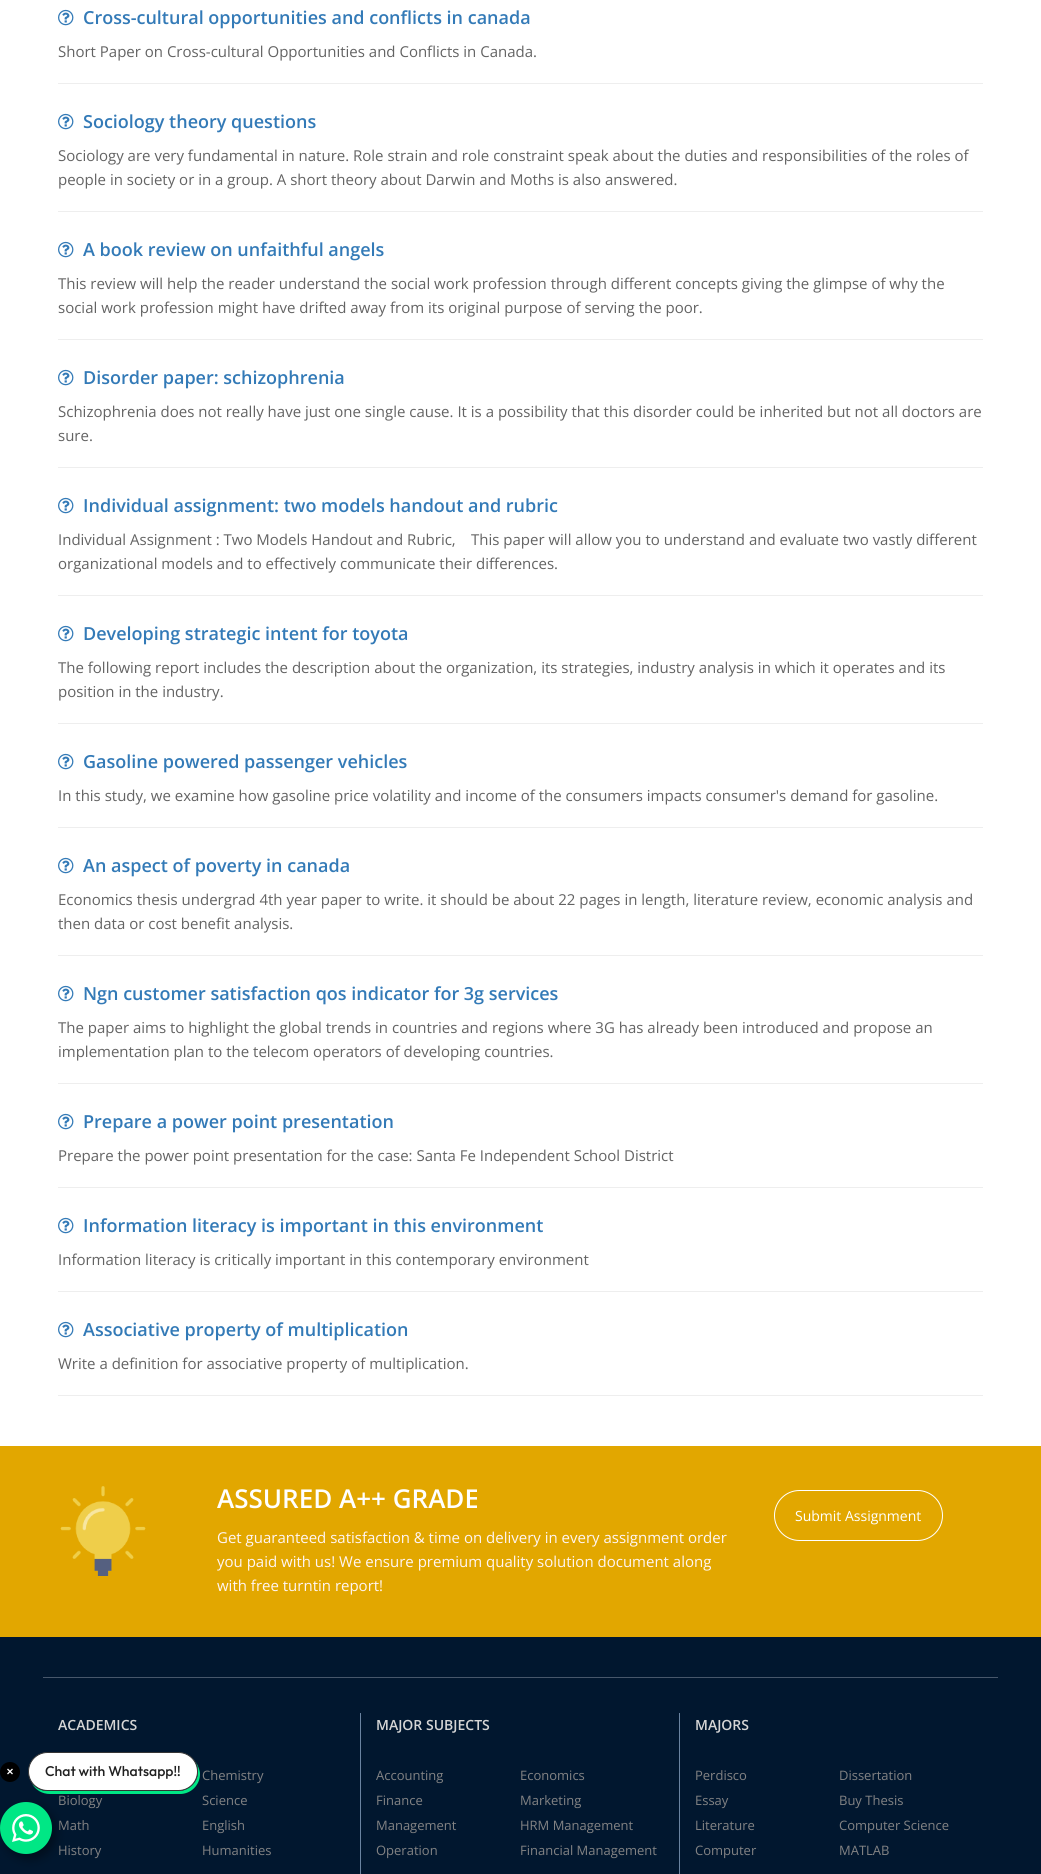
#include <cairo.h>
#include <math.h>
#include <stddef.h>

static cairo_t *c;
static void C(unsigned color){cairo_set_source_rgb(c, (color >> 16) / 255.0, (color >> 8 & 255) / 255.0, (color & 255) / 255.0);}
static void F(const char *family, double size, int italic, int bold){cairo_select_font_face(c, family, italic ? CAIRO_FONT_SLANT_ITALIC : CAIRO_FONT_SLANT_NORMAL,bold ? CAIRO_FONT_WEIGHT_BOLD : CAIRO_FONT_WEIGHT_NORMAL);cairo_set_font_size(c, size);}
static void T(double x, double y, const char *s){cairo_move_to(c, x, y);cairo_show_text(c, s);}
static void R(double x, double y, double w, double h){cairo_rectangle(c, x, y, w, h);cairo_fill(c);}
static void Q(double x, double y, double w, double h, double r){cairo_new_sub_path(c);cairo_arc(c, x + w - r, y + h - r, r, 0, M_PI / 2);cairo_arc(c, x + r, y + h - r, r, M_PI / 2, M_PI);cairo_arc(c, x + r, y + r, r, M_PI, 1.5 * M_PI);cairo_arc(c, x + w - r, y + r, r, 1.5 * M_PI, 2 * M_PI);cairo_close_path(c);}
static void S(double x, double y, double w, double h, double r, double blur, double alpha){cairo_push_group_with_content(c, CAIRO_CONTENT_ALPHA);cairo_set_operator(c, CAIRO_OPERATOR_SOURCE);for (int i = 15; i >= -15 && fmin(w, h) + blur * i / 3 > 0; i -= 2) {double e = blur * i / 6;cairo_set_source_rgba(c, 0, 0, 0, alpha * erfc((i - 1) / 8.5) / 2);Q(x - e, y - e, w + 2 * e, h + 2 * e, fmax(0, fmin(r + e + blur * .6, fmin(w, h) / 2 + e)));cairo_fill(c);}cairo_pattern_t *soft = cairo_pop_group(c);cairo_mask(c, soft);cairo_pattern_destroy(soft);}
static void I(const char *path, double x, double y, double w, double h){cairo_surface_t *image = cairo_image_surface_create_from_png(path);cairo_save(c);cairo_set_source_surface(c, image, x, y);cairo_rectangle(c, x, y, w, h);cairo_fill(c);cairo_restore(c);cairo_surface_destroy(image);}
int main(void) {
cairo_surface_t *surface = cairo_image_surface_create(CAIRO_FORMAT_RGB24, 1041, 1874);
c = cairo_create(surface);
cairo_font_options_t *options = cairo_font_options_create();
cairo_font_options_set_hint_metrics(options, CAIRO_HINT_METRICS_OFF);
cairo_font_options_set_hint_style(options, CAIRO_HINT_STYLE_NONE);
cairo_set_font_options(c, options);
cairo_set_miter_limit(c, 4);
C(0xffffff);
cairo_paint(c);
C(0xeeeeee);
R(58,83,925,1);
I("1.png",58,9,16,17);
F("Open Sans SemiBold",18,0,0);
C(0x337ab7);
T(83,24,"Cross-cultural opportunities and conflicts in canada");
F("Open Sans",15,0,0);
C(0x636363);
T(58,57,"Short Paper on Cross-cultural Opportunities and Conflicts in Canada.");
C(0xeeeeee);
R(58,211,925,1);
I("1.png",58,113,16,17);
F("Open Sans SemiBold",18,0,0);
C(0x337ab7);
T(83,128,"Sociology theory questions");
F("Open Sans",15,0,0);
C(0x636363);
T(58,161,"Sociology are very fundamental in nature. Role strain and role constraint speak about the duties and responsibilities of the roles of");
T(58,185,"people in society or in a group. A short theory about Darwin and Moths is also answered.");
C(0xeeeeee);
R(58,339,925,1);
I("1.png",58,241,16,17);
F("Open Sans SemiBold",18,0,0);
C(0x337ab7);
T(83,256,"A book review on unfaithful angels");
F("Open Sans",15,0,0);
C(0x636363);
T(58,289,"This review will help the reader understand the social work profession through different concepts giving the glimpse of why the");
T(58,313,"social work profession might have drifted away from its original purpose of serving the poor.");
C(0xeeeeee);
R(58,467,925,1);
I("1.png",58,369,16,17);
F("Open Sans SemiBold",18,0,0);
C(0x337ab7);
T(83,384,"Disorder paper: schizophrenia");
F("Open Sans",15,0,0);
C(0x636363);
T(58,417,"Schizophrenia does not really have just one single cause. It is a possibility that this disorder could be inherited but not all doctors are");
T(58,441,"sure.");
C(0xeeeeee);
R(58,595,925,1);
I("1.png",58,497,16,17);
F("Open Sans SemiBold",18,0,0);
C(0x337ab7);
T(83,512,"Individual assignment: two models handout and rubric");
F("Open Sans",15,0,0);
C(0x636363);
T(58,545,"Individual Assignment : Two Models Handout and Rubric,");
T(471,545,"This paper will allow you to understand and evaluate two vastly different");
T(58,569,"organizational models and to effectively communicate their differences.");
C(0xeeeeee);
R(58,723,925,1);
I("1.png",58,625,16,17);
F("Open Sans SemiBold",18,0,0);
C(0x337ab7);
T(83,640,"Developing strategic intent for toyota");
F("Open Sans",15,0,0);
C(0x636363);
T(58,673,"The following report includes the description about the organization, its strategies, industry analysis in which it operates and its");
T(58,697,"position in the industry.");
C(0xeeeeee);
R(58,827,925,1);
I("1.png",58,753,16,17);
F("Open Sans SemiBold",18,0,0);
C(0x337ab7);
T(83,768,"Gasoline powered passenger vehicles");
F("Open Sans",15,0,0);
C(0x636363);
T(58,801,"In this study, we examine how gasoline price volatility and income of the consumers impacts consumer's demand for gasoline.");
C(0xeeeeee);
R(58,955,925,1);
I("1.png",58,857,16,17);
F("Open Sans SemiBold",18,0,0);
C(0x337ab7);
T(83,872,"An aspect of poverty in canada");
F("Open Sans",15,0,0);
C(0x636363);
T(58,905,"Economics thesis undergrad 4th year paper to write. it should be about 22 pages in length, literature review, economic analysis and");
T(58,929,"then data or cost benefit analysis.");
C(0xeeeeee);
R(58,1083,925,1);
I("1.png",58,985,16,17);
F("Open Sans SemiBold",18,0,0);
C(0x337ab7);
T(83,1000,"Ngn customer satisfaction qos indicator for 3g services");
F("Open Sans",15,0,0);
C(0x636363);
T(58,1033,"The paper aims to highlight the global trends in countries and regions where 3G has already been introduced and propose an");
T(58,1057,"implementation plan to the telecom operators of developing countries.");
C(0xeeeeee);
R(58,1187,925,1);
I("1.png",58,1113,16,17);
F("Open Sans SemiBold",18,0,0);
C(0x337ab7);
T(83,1128,"Prepare a power point presentation");
F("Open Sans",15,0,0);
C(0x636363);
T(58,1161,"Prepare the power point presentation for the case: Santa Fe Independent School District");
C(0xeeeeee);
R(58,1291,925,1);
I("1.png",58,1217,16,17);
F("Open Sans SemiBold",18,0,0);
C(0x337ab7);
T(83,1232,"Information literacy is important in this environment");
F("Open Sans",15,0,0);
C(0x636363);
T(58,1265,"Information literacy is critically important in this contemporary environment");
C(0xeeeeee);
R(58,1395,925,1);
I("1.png",58,1321,16,17);
F("Open Sans SemiBold",18,0,0);
C(0x337ab7);
T(83,1336,"Associative property of multiplication");
F("Open Sans",15,0,0);
C(0x636363);
T(58,1369,"Write a definition for associative property of multiplication.");
C(0xe2a700);
R(0,1446,1041,191);
I("2.png",60,1486,86,90);
F("Open Sans SemiBold",26,0,0);
C(0xffffff);
T(217,1508,"ASSURED A++ GRADE");
F("Open Sans",15,0,0);
C(0xfff5f3);
T(217,1543,"Get guaranteed satisfaction & time on delivery in every assignment order");
T(217,1567,"you paid with us! We ensure premium quality solution document along");
T(217,1591,"with free turntin report!");
Q(774.5,1490.5,168,50,25);
C(0xffffff);
cairo_set_line_width(c,1);
cairo_stroke(c);
F("Open Sans",14,0,0);
T(795,1521,"Submit Assignment");
C(0x01172f);
R(0,1637,1041,237);
C(0x47576b);
R(43,1677,955,1);
C(0x6a83a0);
R(360,1713,1,161);
F("Open Sans SemiBold",14,0,0);
C(0xd6d6d6);
T(58,1730,"ACADEMICS");
F("Open Sans",13,0,0);
C(0x838384);
T(202,1780,"Chemistry");
T(58,1805,"Biology");
T(202,1805,"Science");
T(58,1830,"Math");
T(202,1830,"English");
T(58,1855,"History");
T(202,1855,"Humanities");
C(0x6a83a0);
R(679,1713,1,161);
F("Open Sans SemiBold",14,0,0);
C(0xd6d6d6);
T(376,1730,"MAJOR SUBJECTS");
F("Open Sans",13,0,0);
C(0x838384);
T(376,1780,"Accounting");
T(520,1780,"Economics");
T(376,1805,"Finance");
T(520,1805,"Marketing");
T(376,1830,"Management");
T(520,1830,"HRM Management");
T(376,1855,"Operation");
T(520,1855,"Financial Management");
F("Open Sans SemiBold",14,0,0);
C(0xd6d6d6);
T(695,1730,"MAJORS");
F("Open Sans",13,0,0);
C(0x838384);
T(695,1780,"Perdisco");
T(839,1780,"Dissertation");
T(695,1805,"Essay");
T(839,1805,"Buy Thesis");
T(695,1830,"Literature");
T(839,1830,"Computer Science");
T(695,1855,"Computer");
T(839,1855,"MATLAB");
C(0x000000);
cairo_new_path(c);
cairo_arc(c,10,1772,10,0,2 * M_PI);
cairo_fill(c);
cairo_new_path(c);
cairo_move_to(c,7.5,1769);
cairo_line_to(c,12.5,1774);
cairo_move_to(c,7.5,1774);
cairo_line_to(c,12.5,1769);
C(0xffffff);
cairo_set_line_width(c,1.3);
cairo_stroke(c);
C(0x000000);
S(4,1807,52,52,26,5,.4);
C(0x00e785);
cairo_new_path(c);
cairo_move_to(c,32,1784);
cairo_curve_to(c,36,1790,42,1794,50,1794);
cairo_line_to(c,180,1794);
cairo_curve_to(c,191,1794,200,1785,200,1774);
cairo_curve_to(c,200,1770,198,1766,196,1762);
cairo_curve_to(c,197,1765,198,1768,198,1772);
cairo_curve_to(c,198,1782,189,1791,178,1791);
cairo_line_to(c,48,1791);
cairo_curve_to(c,41,1791,36,1788,32,1784);
cairo_close_path(c);
cairo_fill(c);
C(0xffffff);
Q(28.5,1752.5,169,38,19);
cairo_fill_preserve(c);
C(0x363636);
cairo_set_line_width(c,1);
cairo_stroke(c);
F("Outfit Medium",14,0,0);
C(0x202020);
T(45,1776,"Chat with Whatsapp!!");
C(0x00e785);
cairo_new_path(c);
cairo_arc(c,26,1828,26,0,2 * M_PI);
cairo_fill(c);
I("3.png",12,1814,28,28);
cairo_surface_write_to_png(surface, "o.png");
cairo_font_options_destroy(options);
cairo_destroy(c);
cairo_surface_destroy(surface);
return 0;
}
